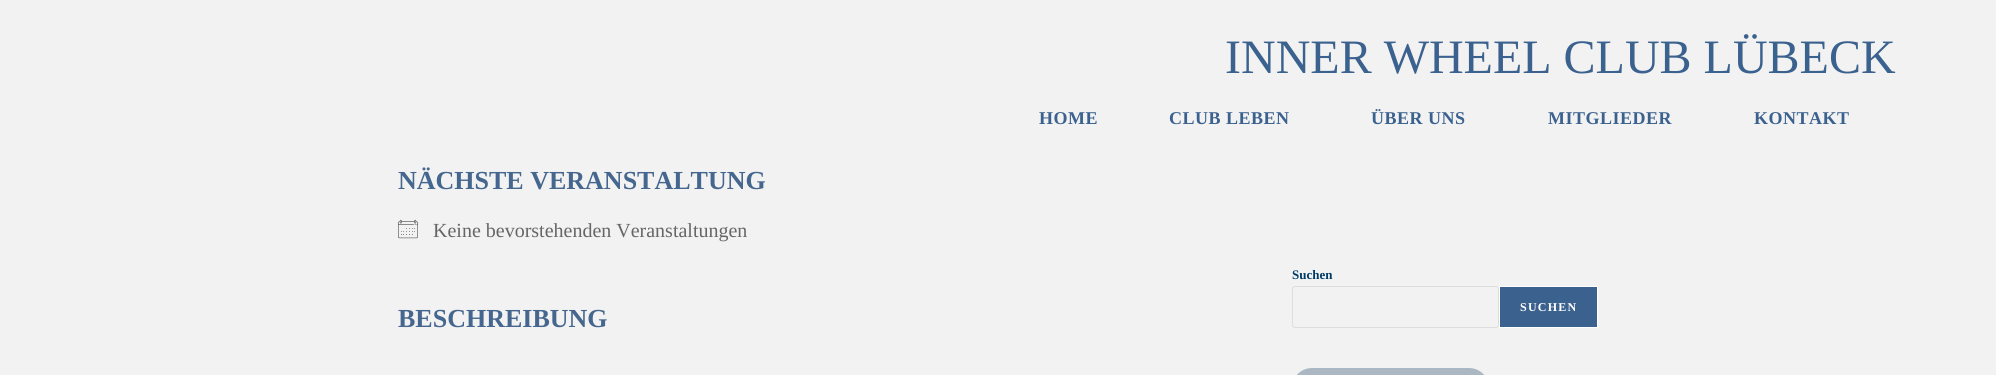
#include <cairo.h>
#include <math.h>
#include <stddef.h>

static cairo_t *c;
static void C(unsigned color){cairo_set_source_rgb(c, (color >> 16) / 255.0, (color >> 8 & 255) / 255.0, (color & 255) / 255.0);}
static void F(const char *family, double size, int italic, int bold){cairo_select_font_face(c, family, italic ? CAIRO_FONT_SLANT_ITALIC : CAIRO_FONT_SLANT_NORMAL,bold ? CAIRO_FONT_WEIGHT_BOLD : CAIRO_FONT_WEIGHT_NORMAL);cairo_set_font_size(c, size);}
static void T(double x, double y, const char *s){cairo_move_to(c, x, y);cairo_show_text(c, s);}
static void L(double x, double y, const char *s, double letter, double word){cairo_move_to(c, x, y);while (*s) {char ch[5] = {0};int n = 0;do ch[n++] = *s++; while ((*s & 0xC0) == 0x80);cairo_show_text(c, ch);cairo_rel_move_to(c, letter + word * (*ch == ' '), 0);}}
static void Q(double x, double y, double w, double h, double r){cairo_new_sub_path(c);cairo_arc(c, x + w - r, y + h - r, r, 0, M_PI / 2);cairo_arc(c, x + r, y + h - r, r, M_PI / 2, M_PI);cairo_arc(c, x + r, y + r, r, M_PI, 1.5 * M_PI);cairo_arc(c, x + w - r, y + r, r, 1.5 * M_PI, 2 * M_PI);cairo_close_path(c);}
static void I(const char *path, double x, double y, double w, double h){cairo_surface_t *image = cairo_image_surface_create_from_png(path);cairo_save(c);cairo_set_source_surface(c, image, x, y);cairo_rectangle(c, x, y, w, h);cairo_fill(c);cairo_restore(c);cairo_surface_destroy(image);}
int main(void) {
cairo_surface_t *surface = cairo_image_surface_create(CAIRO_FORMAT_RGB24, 1996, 375);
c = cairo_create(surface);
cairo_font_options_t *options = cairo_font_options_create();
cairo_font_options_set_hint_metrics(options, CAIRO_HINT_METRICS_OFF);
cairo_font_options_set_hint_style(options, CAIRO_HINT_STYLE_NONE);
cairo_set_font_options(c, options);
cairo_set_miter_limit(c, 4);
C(0xf2f2f2);
cairo_paint(c);
F("Liberation Serif",48,0,0);
C(0x3b618e);
T(1225,73,"INNER WHEEL CLUB LÜBECK");
F("Liberation Serif",18,0,1);
L(1039,124,"HOME",.5,0);
L(1169,124,"CLUB LEBEN",.5,0);
L(1371,124,"ÜBER UNS",.5,0);
L(1548,124,"MITGLIEDER",.5,0);
L(1754,124,"KONTAKT",.5,0);
F("Liberation Serif",26,0,1);
C(0x45668e);
T(398,189,"NÄCHSTE VERANSTALTUNG");
I("1.png",398,219,20,20);
F("Liberation Serif",20,0,0);
C(0x666666);
T(433,237,"Keine bevorstehenden Veranstaltungen");
F("Liberation Serif",26,0,1);
C(0x45668e);
T(398,327,"BESCHREIBUNG");
F("Liberation Serif",13,0,1);
C(0x003b68);
T(1292,279,"Suchen");
Q(1292.5,286.5,206,41,2.5);
C(0xdddddd);
cairo_set_line_width(c,1);
cairo_stroke(c);
C(0x3b618e);
cairo_rectangle(c,1499.5,286.5,98,41);
cairo_fill_preserve(c);
C(0xffffff);
cairo_stroke(c);
F("Liberation Serif",12,0,1);
L(1520,311,"SUCHEN",1.25,0);
C(0xabb8c3);
Q(1292,368,197,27,20);
cairo_fill(c);
cairo_surface_write_to_png(surface, "o.png");
cairo_font_options_destroy(options);
cairo_destroy(c);
cairo_surface_destroy(surface);
return 0;
}
